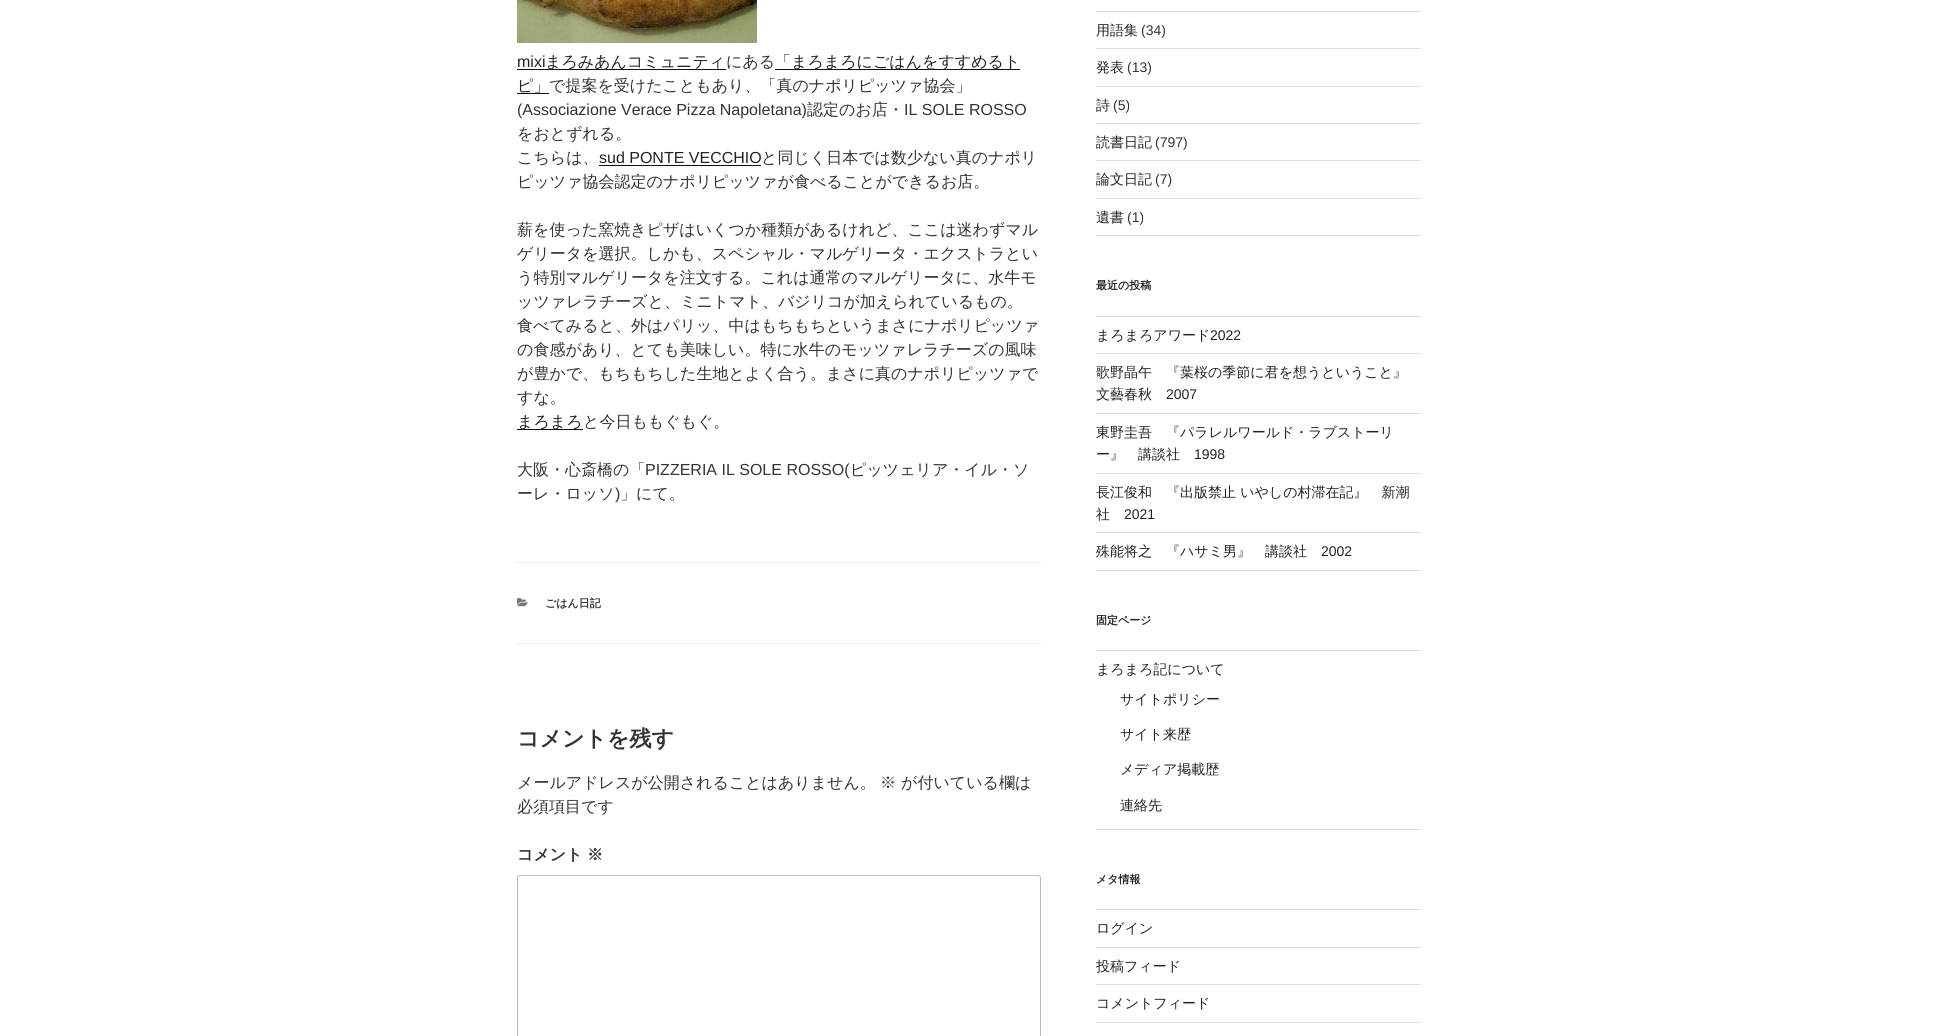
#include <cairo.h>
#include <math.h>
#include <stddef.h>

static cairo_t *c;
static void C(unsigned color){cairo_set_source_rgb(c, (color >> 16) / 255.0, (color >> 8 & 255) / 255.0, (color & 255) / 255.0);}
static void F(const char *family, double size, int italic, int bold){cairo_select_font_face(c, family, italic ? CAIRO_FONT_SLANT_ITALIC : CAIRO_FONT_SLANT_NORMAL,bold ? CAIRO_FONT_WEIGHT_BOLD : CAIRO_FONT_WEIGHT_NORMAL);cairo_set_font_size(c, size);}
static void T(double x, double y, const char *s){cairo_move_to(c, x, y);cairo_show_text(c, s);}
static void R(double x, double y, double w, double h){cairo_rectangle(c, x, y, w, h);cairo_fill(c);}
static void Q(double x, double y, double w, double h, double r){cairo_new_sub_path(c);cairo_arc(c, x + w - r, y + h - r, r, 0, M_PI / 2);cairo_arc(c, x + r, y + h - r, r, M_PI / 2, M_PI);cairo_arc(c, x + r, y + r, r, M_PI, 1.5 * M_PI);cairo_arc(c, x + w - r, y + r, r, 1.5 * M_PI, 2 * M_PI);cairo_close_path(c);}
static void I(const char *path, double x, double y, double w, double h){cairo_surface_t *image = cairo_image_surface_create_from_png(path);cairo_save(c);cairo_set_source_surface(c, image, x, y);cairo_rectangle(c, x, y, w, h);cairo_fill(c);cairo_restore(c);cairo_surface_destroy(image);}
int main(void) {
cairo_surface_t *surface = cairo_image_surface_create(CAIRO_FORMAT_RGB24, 1938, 1036);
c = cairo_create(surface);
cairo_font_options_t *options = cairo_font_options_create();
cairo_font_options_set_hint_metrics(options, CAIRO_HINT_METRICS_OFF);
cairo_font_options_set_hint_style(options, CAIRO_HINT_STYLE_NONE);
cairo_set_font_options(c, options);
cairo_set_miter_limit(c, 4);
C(0xffffff);
cairo_paint(c);
I("1.png",517,0,240,43);
F("Liberation Sans",16,0,0);
C(0x222222);
T(517,67,"mixi");
C(0x0f0f0f);
R(517,69,209,1);
F("WenQuanYi Zen Hei Medium",16,0,0);
C(0x222222);
T(545,67,"まろみあんコミュニティ");
C(0x333333);
T(726,67,"にある");
C(0x0f0f0f);
R(775,69,245,1);
C(0x222222);
T(775,67,"「まろまろにごはんをすすめるト");
T(517,91,"ピ」");
C(0x0f0f0f);
R(517,93,32,1);
C(0x333333);
T(549,91,"で提案を受けたこともあり、「真のナポリピッツァ協会」");
F("Liberation Sans",16,0,0);
T(517,115,"(Associazione Verace Pizza Napoletana)");
F("WenQuanYi Zen Hei Medium",16,0,0);
T(807,115,"認定のお店・");
F("Liberation Sans",16,0,0);
T(904,115,"IL SOLE ROSSO");
F("WenQuanYi Zen Hei Medium",16,0,0);
T(517,139,"をおとずれる。");
T(517,163,"こちらは、");
F("Liberation Sans",16,0,0);
C(0x222222);
T(599,163,"sud PONTE VECCHIO");
C(0x0f0f0f);
R(599,165,162,1);
F("WenQuanYi Zen Hei Medium",16,0,0);
C(0x333333);
T(761,163,"と同じく日本では数少ない真のナポリ");
T(517,187,"ピッツァ協会認定のナポリピッツァが食べることができるお店。");
T(517,235,"薪を使った窯焼きピザはいくつか種類があるけれど、ここは迷わずマル");
T(517,259,"ゲリータを選択。しかも、スペシャル・マルゲリータ・エクストラとい");
T(517,283,"う特別マルゲリータを注文する。これは通常のマルゲリータに、水牛モ");
T(517,307,"ッツァレラチーズと、ミニトマト、バジリコが加えられているもの。");
T(517,331,"食べてみると、外はパリッ、中はもちもちというまさにナポリピッツァ");
T(517,355,"の食感があり、とても美味しい。特に水牛のモッツァレラチーズの風味");
T(517,379,"が豊かで、もちもちした生地とよく合う。まさに真のナポリピッツァで");
T(517,403,"すな。");
C(0x0f0f0f);
R(517,429,66,1);
C(0x222222);
T(517,427,"まろまろ");
C(0x333333);
T(583,427,"と今日ももぐもぐ。");
T(517,475,"大阪・心斎橋の「");
F("Liberation Sans",16,0,0);
T(645,475,"PIZZERIA IL SOLE ROSSO(");
F("WenQuanYi Zen Hei Medium",16,0,0);
T(850,475,"ピッツェリア・イル・ソ");
T(517,499,"ーレ・ロッソ");
F("Liberation Sans",16,0,0);
T(615,499,")");
F("WenQuanYi Zen Hei Medium",16,0,0);
T(620,499,"」にて。");
C(0xeeeeee);
R(517,562,524,1);
R(517,643,524,1);
I("2.png",517,598,11,9);
F("WenQuanYi Zen Hei",11,0,1);
C(0x333333);
T(545,607,"ごはん日記");
F("WenQuanYi Zen Hei",22,0,1);
T(517,746,"コメントを残す");
F("WenQuanYi Zen Hei Medium",16,0,0);
T(517,788,"メールアドレスが公開されることはありません。");
T(880,788,"※");
T(901,788,"が付いている欄は");
T(517,812,"必須項目です");
F("WenQuanYi Zen Hei",16,0,1);
T(517,860,"コメント");
T(587,860,"※");
Q(517.5,875.5,523,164,2.5);
C(0xbbbbbb);
cairo_set_line_width(c,1);
cairo_stroke(c);
C(0xdddddd);
R(1096,11,325,1);
R(1096,48,325,1);
F("WenQuanYi Zen Hei Medium",14,0,0);
C(0x222222);
T(1096,35,"用語集");
F("Liberation Sans",14,0,0);
C(0x333333);
T(1141,35,"(34)");
C(0xdddddd);
R(1096,86,325,1);
F("WenQuanYi Zen Hei Medium",14,0,0);
C(0x222222);
T(1096,72,"発表");
F("Liberation Sans",14,0,0);
C(0x333333);
T(1127,72,"(13)");
C(0xdddddd);
R(1096,123,325,1);
F("WenQuanYi Zen Hei Medium",14,0,0);
C(0x222222);
T(1096,110,"詩");
F("Liberation Sans",14,0,0);
C(0x333333);
T(1113,110,"(5)");
C(0xdddddd);
R(1096,160,325,1);
F("WenQuanYi Zen Hei Medium",14,0,0);
C(0x222222);
T(1096,147,"読書日記");
F("Liberation Sans",14,0,0);
C(0x333333);
T(1155,147,"(797)");
C(0xdddddd);
R(1096,198,325,1);
F("WenQuanYi Zen Hei Medium",14,0,0);
C(0x222222);
T(1096,184,"論文日記");
F("Liberation Sans",14,0,0);
C(0x333333);
T(1155,184,"(7)");
C(0xdddddd);
R(1096,235,325,1);
F("WenQuanYi Zen Hei Medium",14,0,0);
C(0x222222);
T(1096,222,"遺書");
F("Liberation Sans",14,0,0);
C(0x333333);
T(1127,222,"(1)");
F("WenQuanYi Zen Hei",11,0,1);
C(0x222222);
T(1096,289,"最近の投稿");
C(0xdddddd);
R(1096,316,325,1);
R(1096,353,325,1);
F("WenQuanYi Zen Hei Medium",14,0,0);
C(0x222222);
T(1096,340,"まろまろアワード");
F("Liberation Sans",14,0,0);
T(1210,340,"2022");
C(0xdddddd);
R(1096,413,325,1);
F("WenQuanYi Zen Hei Medium",14,0,0);
C(0x222222);
T(1096,377,"歌野晶午　『葉桜の季節に君を想うということ』");
T(1096,399,"文藝春秋");
F("Liberation Sans",14,0,0);
T(1166,399,"2007");
C(0xdddddd);
R(1096,473,325,1);
F("WenQuanYi Zen Hei Medium",14,0,0);
C(0x222222);
T(1096,437,"東野圭吾　『パラレルワールド・ラブストーリ");
T(1096,459,"ー』　講談社");
F("Liberation Sans",14,0,0);
T(1194,459,"1998");
C(0xdddddd);
R(1096,532,325,1);
F("WenQuanYi Zen Hei Medium",14,0,0);
C(0x222222);
T(1096,497,"長江俊和　『出版禁止 いやしの村滞在記』　新潮");
T(1096,519,"社");
F("Liberation Sans",14,0,0);
T(1124,519,"2021");
C(0xdddddd);
R(1096,570,325,1);
F("WenQuanYi Zen Hei Medium",14,0,0);
C(0x222222);
T(1096,556,"殊能将之　『ハサミ男』　講談社");
F("Liberation Sans",14,0,0);
T(1321,556,"2002");
F("WenQuanYi Zen Hei",11,0,1);
T(1096,624,"固定ページ");
C(0xdddddd);
R(1096,650,325,1);
R(1096,829,325,1);
F("WenQuanYi Zen Hei Medium",14,0,0);
C(0x222222);
T(1096,674,"まろまろ記について");
T(1120,704,"サイトポリシー");
T(1120,739,"サイト来歴");
T(1120,774,"メディア掲載歴");
T(1120,810,"連絡先");
F("WenQuanYi Zen Hei",11,0,1);
T(1096,883,"メタ情報");
C(0xdddddd);
R(1096,909,325,1);
R(1096,947,325,1);
F("WenQuanYi Zen Hei Medium",14,0,0);
C(0x222222);
T(1096,933,"ログイン");
C(0xdddddd);
R(1096,984,325,1);
C(0x222222);
T(1096,971,"投稿フィード");
C(0xdddddd);
R(1096,1022,325,1);
C(0x222222);
T(1096,1008,"コメントフィード");
cairo_surface_write_to_png(surface, "o.png");
cairo_font_options_destroy(options);
cairo_destroy(c);
cairo_surface_destroy(surface);
return 0;
}
